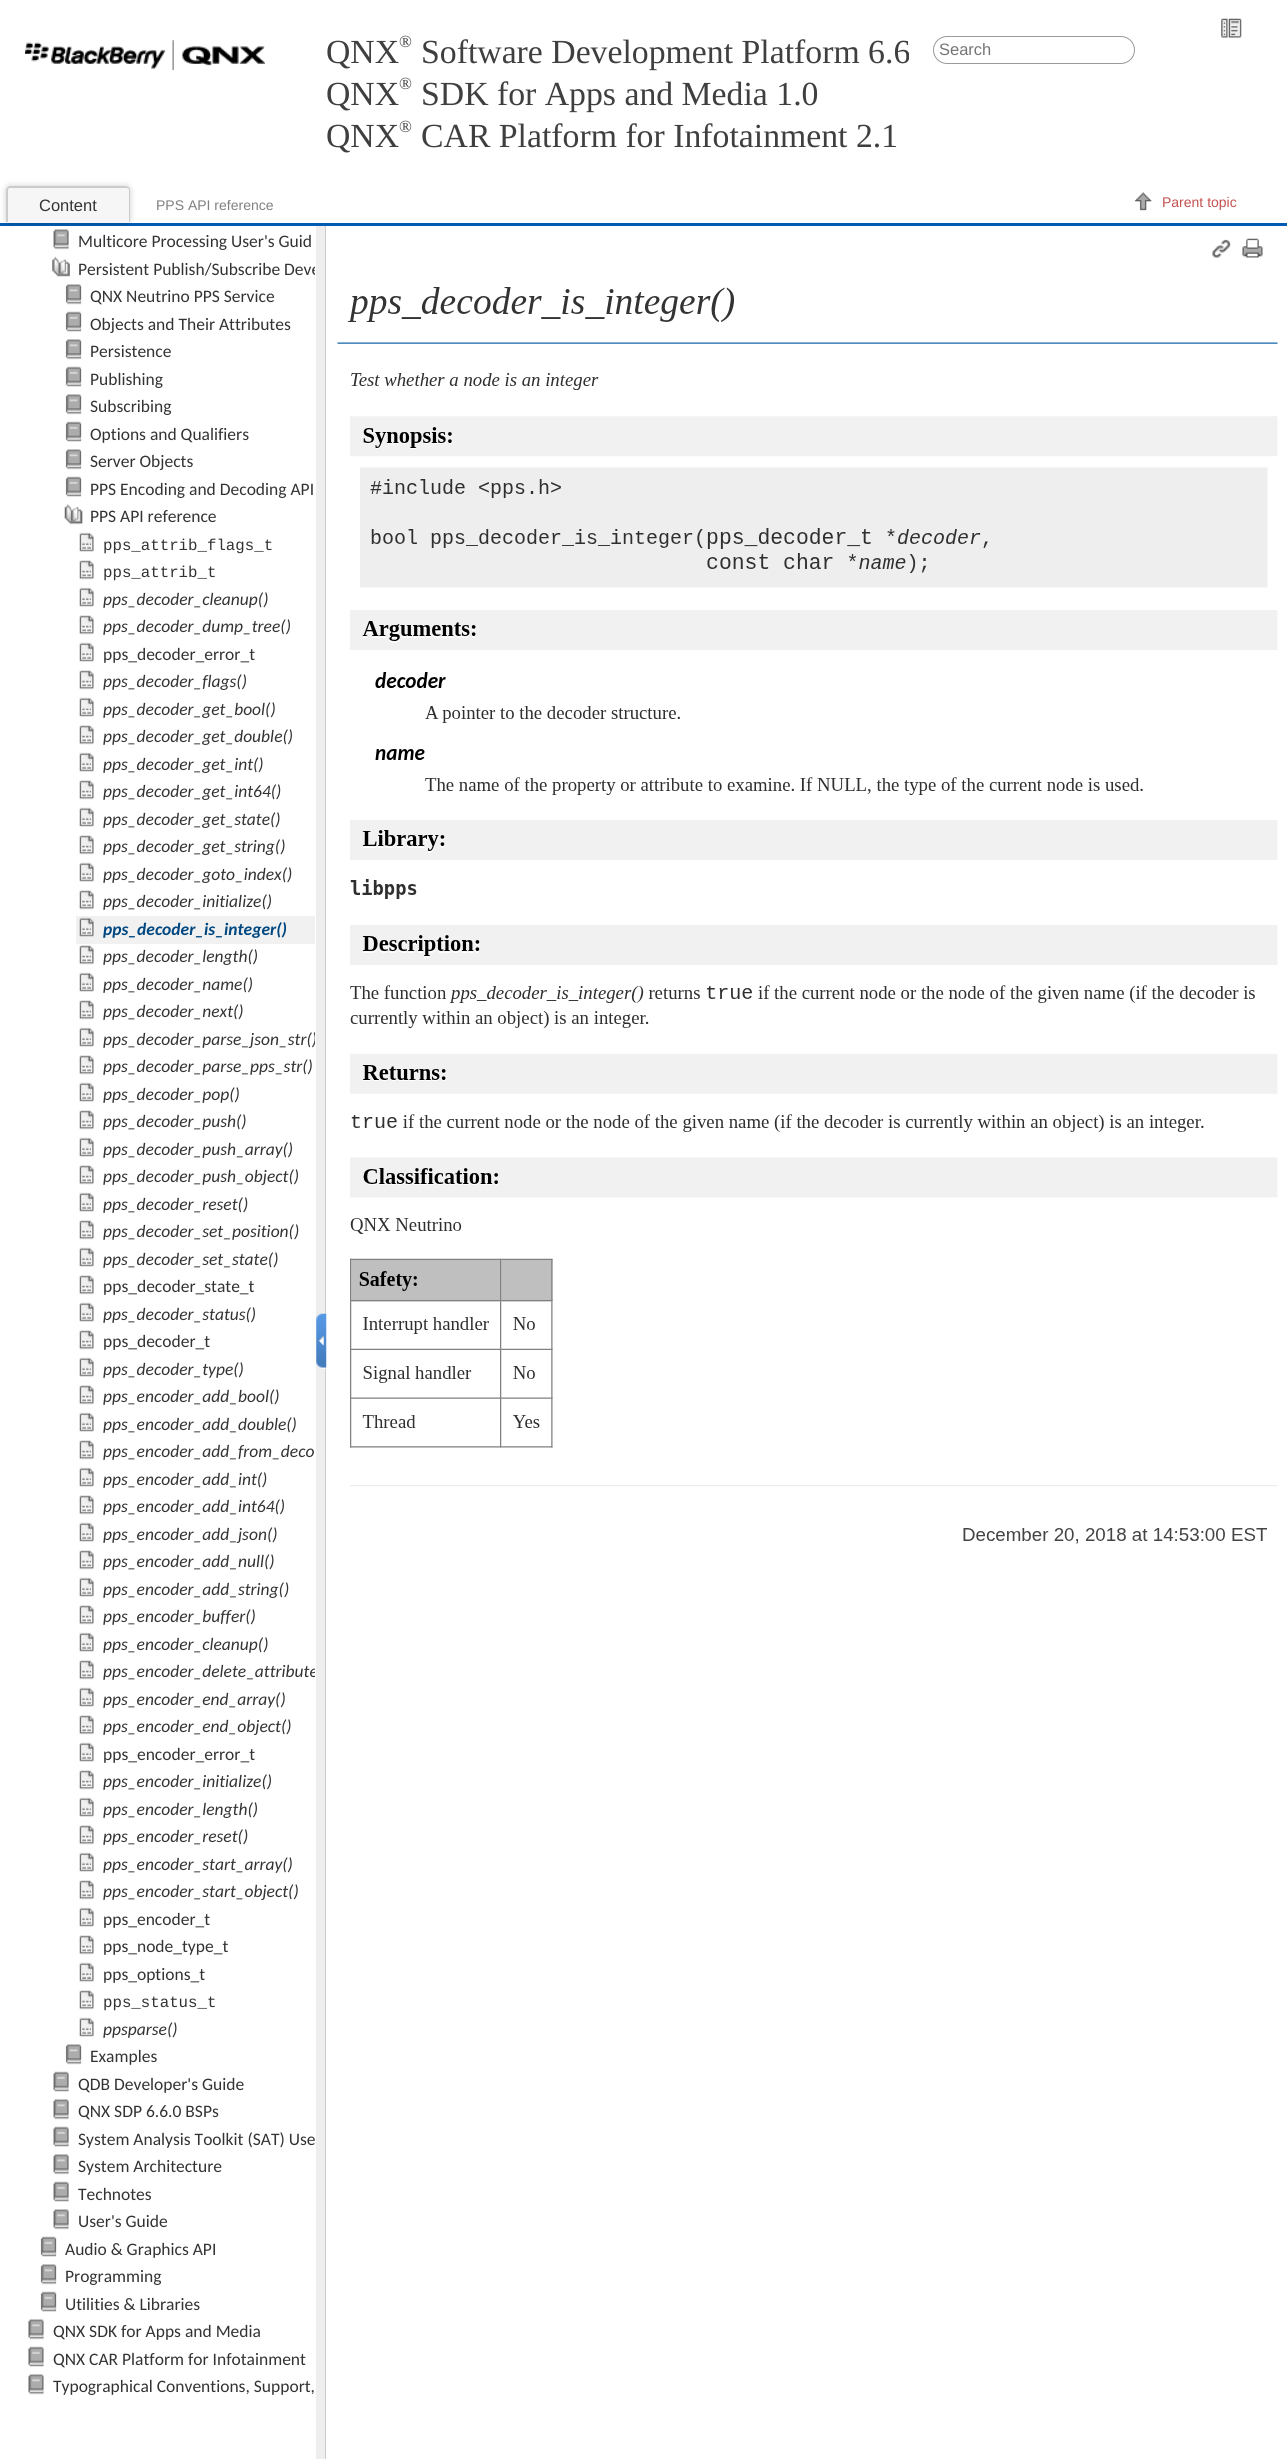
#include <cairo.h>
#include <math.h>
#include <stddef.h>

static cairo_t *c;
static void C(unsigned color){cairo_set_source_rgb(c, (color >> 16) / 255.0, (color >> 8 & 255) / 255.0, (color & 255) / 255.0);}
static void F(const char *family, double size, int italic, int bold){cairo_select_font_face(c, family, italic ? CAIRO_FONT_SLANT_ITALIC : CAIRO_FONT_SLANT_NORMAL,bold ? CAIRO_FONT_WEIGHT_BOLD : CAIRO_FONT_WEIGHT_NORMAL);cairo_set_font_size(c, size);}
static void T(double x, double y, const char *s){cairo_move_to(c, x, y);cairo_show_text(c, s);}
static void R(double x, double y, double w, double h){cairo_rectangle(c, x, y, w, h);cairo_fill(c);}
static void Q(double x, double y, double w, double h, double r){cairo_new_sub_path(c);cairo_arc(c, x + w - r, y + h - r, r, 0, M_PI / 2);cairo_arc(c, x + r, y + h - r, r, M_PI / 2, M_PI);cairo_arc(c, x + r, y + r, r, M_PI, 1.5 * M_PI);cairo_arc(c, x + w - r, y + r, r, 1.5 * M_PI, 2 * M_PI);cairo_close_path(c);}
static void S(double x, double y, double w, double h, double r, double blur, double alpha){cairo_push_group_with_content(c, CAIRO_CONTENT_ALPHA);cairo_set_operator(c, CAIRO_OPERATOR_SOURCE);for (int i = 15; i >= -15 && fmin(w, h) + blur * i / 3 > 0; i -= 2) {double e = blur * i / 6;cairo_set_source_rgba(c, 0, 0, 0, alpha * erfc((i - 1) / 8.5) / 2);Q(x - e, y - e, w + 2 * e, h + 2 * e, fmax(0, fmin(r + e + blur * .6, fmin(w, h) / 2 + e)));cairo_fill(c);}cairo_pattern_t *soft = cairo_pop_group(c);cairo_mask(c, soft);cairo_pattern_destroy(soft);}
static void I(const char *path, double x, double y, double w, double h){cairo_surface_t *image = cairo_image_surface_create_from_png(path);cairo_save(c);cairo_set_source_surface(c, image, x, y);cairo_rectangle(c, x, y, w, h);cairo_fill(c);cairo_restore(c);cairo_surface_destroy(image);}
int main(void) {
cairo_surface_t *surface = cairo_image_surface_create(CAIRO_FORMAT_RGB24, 1287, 2462);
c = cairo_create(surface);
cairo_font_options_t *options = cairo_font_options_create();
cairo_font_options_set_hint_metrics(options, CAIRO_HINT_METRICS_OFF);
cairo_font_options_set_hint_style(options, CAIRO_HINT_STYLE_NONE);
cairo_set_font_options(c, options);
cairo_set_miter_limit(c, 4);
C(0xffffff);
cairo_paint(c);
I("1.png",1221,18,21,20);
I("2.png",25,40,240,30);
F("Liberation Serif",33.75,0,0);
C(0x3f3f3f);
T(326,63,"QNX");
F("Liberation Serif",17,0,0);
T(399,47,"®");
F("Liberation Serif",33.75,0,0);
T(421,63,"Software Development Platform 6.6");
T(326,105,"QNX");
F("Liberation Serif",17,0,0);
T(399,89,"®");
F("Liberation Serif",33.75,0,0);
T(421,105,"SDK for Apps and Media 1.0");
T(326,147,"QNX");
F("Liberation Serif",17,0,0);
T(399,132,"®");
F("Liberation Serif",33.75,0,0);
T(421,147,"CAR Platform for Infotainment 2.1");
Q(933.5,36.5,201,27,13.5);
C(0x999999);
cairo_set_line_width(c,1);
cairo_stroke(c);
F("Liberation Sans",16.5,0,0);
C(0x757575);
T(939,55,"Search");
C(0xcccccc);
R(325,225,1,2234);
C(0x005cb3);
R(0,223,1287,3);
C(0x000000);
S(6,186,124,37,4,3,.2);
C(0xf6f6f6);
cairo_new_path(c);
cairo_move_to(c,10,186);
cairo_line_to(c,126,186);
cairo_curve_to(c,128,186,130,188,130,190);
cairo_line_to(c,130,223);
cairo_line_to(c,6,223);
cairo_line_to(c,6,190);
cairo_curve_to(c,6,188,8,186,10,186);
cairo_close_path(c);
cairo_fill(c);
C(0xcccccc);
cairo_set_fill_rule(c,CAIRO_FILL_RULE_EVEN_ODD);
cairo_new_path(c);
cairo_move_to(c,10,186);
cairo_line_to(c,126,186);
cairo_curve_to(c,128,186,130,188,130,190);
cairo_line_to(c,130,222);
cairo_line_to(c,6,222);
cairo_line_to(c,6,190);
cairo_curve_to(c,6,188,8,186,10,186);
cairo_close_path(c);
cairo_move_to(c,10,188);
cairo_line_to(c,126,188);
cairo_curve_to(c,128,188,129,189,129,190);
cairo_line_to(c,129,222);
cairo_line_to(c,8,222);
cairo_line_to(c,8,190);
cairo_curve_to(c,8,189,9,188,10,188);
cairo_close_path(c);
cairo_fill(c);
C(0x333333);
T(39,211,"Content");
F("Liberation Sans",14,0,0);
C(0x808080);
T(156,210,"PPS API reference");
I("3.png",1134,192,18,19);
C(0xc45050);
T(1162,207,"Parent topic");
C(0xffffff);
R(14,226,115,2);
I("4.png",53,229,16,21);
F("Carlito",17.5,0,0);
C(0x333333);
T(78,247,"Multicore Processing User's Guid");
I("5.png",52,256,18,21);
cairo_save(c);
cairo_set_fill_rule(c,CAIRO_FILL_RULE_WINDING);
cairo_rectangle(c,1,226,314,2234);
cairo_clip(c);
T(78,275,"Persistent Publish/Subscribe Deve");
cairo_restore(c);
I("6.png",65,284,17,21);
T(90,302,"QNX Neutrino PPS Service");
I("7.png",65,311,17,21);
T(90,330,"Objects and Their Attributes");
I("6.png",65,339,17,21);
T(90,357,"Persistence");
I("7.png",65,366,17,21);
T(90,385,"Publishing");
I("6.png",65,394,17,21);
T(90,412,"Subscribing");
I("7.png",65,421,17,21);
T(90,440,"Options and Qualifiers");
I("6.png",65,449,17,21);
T(90,467,"Server Objects");
I("7.png",65,476,17,21);
T(90,495,"PPS Encoding and Decoding API");
I("8.png",64,504,19,21);
T(90,522,"PPS API reference");
I("9.png",79,532,15,20);
F("Liberation Mono",15.75,0,0);
T(103,550,"pps_attrib_flags_t");
I("10.png",79,560,15,20);
T(103,577,"pps_attrib_t");
I("9.png",79,587,15,20);
F("Carlito",17.5,1,0);
T(103,605,"pps_decoder_cleanup()");
I("10.png",79,615,15,20);
T(103,632,"pps_decoder_dump_tree()");
I("9.png",79,642,15,20);
F("Carlito",17.5,0,0);
T(103,660,"pps_decoder_error_t");
I("10.png",79,670,15,20);
F("Carlito",17.5,1,0);
T(103,687,"pps_decoder_flags()");
I("11.png",79,697,15,20);
T(103,715,"pps_decoder_get_bool()");
I("10.png",79,725,15,20);
T(103,742,"pps_decoder_get_double()");
I("9.png",79,752,15,20);
T(103,770,"pps_decoder_get_int()");
I("10.png",79,780,15,20);
T(103,797,"pps_decoder_get_int64()");
I("9.png",79,807,15,20);
T(103,825,"pps_decoder_get_state()");
I("10.png",79,835,15,20);
T(103,852,"pps_decoder_get_string()");
I("9.png",79,862,15,20);
T(103,880,"pps_decoder_goto_index()");
I("10.png",79,890,15,20);
T(103,907,"pps_decoder_initialize()");
C(0xf1f1f1);
R(76,916,239,28);
I("12.png",79,917,15,20);
F("Carlito",17.5,1,1);
C(0x004780);
T(103,935,"pps_decoder_is_integer()");
I("10.png",79,945,15,20);
F("Carlito",17.5,1,0);
C(0x333333);
T(103,962,"pps_decoder_length()");
I("9.png",79,972,15,20);
T(103,990,"pps_decoder_name()");
I("10.png",79,1000,15,20);
T(103,1017,"pps_decoder_next()");
I("9.png",79,1027,15,20);
cairo_save(c);
cairo_set_fill_rule(c,CAIRO_FILL_RULE_WINDING);
cairo_rectangle(c,1,226,314,2234);
cairo_clip(c);
T(103,1045,"pps_decoder_parse_json_str()");
cairo_restore(c);
I("10.png",79,1055,15,20);
T(103,1072,"pps_decoder_parse_pps_str()");
I("9.png",79,1082,15,20);
T(103,1100,"pps_decoder_pop()");
I("10.png",79,1110,15,20);
T(103,1127,"pps_decoder_push()");
I("9.png",79,1137,15,20);
T(103,1155,"pps_decoder_push_array()");
I("10.png",79,1165,15,20);
T(103,1182,"pps_decoder_push_object()");
I("9.png",79,1192,15,20);
T(103,1210,"pps_decoder_reset()");
I("10.png",79,1220,15,20);
T(103,1237,"pps_decoder_set_position()");
I("9.png",79,1247,15,20);
T(103,1265,"pps_decoder_set_state()");
I("13.png",79,1275,15,20);
F("Carlito",17.5,0,0);
T(103,1292,"pps_decoder_state_t");
I("9.png",79,1302,15,20);
F("Carlito",17.5,1,0);
T(103,1320,"pps_decoder_status()");
I("10.png",79,1330,15,20);
F("Carlito",17.5,0,0);
T(103,1347,"pps_decoder_t");
I("9.png",79,1357,15,20);
F("Carlito",17.5,1,0);
T(103,1375,"pps_decoder_type()");
I("10.png",79,1385,15,20);
T(103,1402,"pps_encoder_add_bool()");
I("9.png",79,1412,15,20);
T(103,1430,"pps_encoder_add_double()");
I("10.png",79,1440,15,20);
T(103,1457,"pps_encoder_add_from_deco");
I("14.png",79,1467,15,20);
T(103,1485,"pps_encoder_add_int()");
I("10.png",79,1495,15,20);
T(103,1512,"pps_encoder_add_int64()");
I("9.png",79,1522,15,20);
T(103,1540,"pps_encoder_add_json()");
I("10.png",79,1550,15,20);
T(103,1567,"pps_encoder_add_null()");
I("9.png",79,1577,15,20);
T(103,1595,"pps_encoder_add_string()");
I("10.png",79,1605,15,20);
T(103,1622,"pps_encoder_buffer()");
I("9.png",79,1632,15,20);
T(103,1650,"pps_encoder_cleanup()");
I("10.png",79,1660,15,20);
cairo_save(c);
cairo_set_fill_rule(c,CAIRO_FILL_RULE_WINDING);
cairo_rectangle(c,1,226,314,2234);
cairo_clip(c);
T(103,1677,"pps_encoder_delete_attribute");
cairo_restore(c);
I("9.png",79,1687,15,20);
T(103,1705,"pps_encoder_end_array()");
I("10.png",79,1715,15,20);
T(103,1732,"pps_encoder_end_object()");
I("9.png",79,1742,15,20);
F("Carlito",17.5,0,0);
T(103,1760,"pps_encoder_error_t");
I("15.png",79,1770,15,20);
F("Carlito",17.5,1,0);
T(103,1787,"pps_encoder_initialize()");
I("9.png",79,1797,15,20);
T(103,1815,"pps_encoder_length()");
I("10.png",79,1825,15,20);
T(103,1842,"pps_encoder_reset()");
I("9.png",79,1852,15,20);
T(103,1870,"pps_encoder_start_array()");
I("10.png",79,1880,15,20);
T(103,1897,"pps_encoder_start_object()");
I("9.png",79,1907,15,20);
F("Carlito",17.5,0,0);
T(103,1925,"pps_encoder_t");
I("10.png",79,1935,15,20);
T(103,1952,"pps_node_type_t");
I("16.png",79,1962,15,20);
T(103,1980,"pps_options_t");
I("10.png",79,1990,15,20);
F("Liberation Mono",15.75,0,0);
T(103,2007,"pps_status_t");
I("9.png",79,2017,15,20);
F("Carlito",17.5,1,0);
T(103,2035,"ppsparse()");
I("6.png",65,2044,17,21);
F("Carlito",17.5,0,0);
T(90,2062,"Examples");
I("17.png",53,2071,16,21);
T(78,2090,"QDB Developer's Guide");
I("4.png",53,2099,16,21);
T(78,2117,"QNX SDP 6.6.0 BSPs");
I("17.png",53,2126,16,21);
T(78,2145,"System Analysis Toolkit (SAT) Use");
I("4.png",53,2154,16,21);
T(78,2172,"System Architecture");
I("17.png",53,2181,16,21);
T(78,2200,"Technotes");
I("4.png",53,2209,16,21);
T(78,2227,"User's Guide");
I("7.png",40,2236,17,21);
T(65,2255,"Audio & Graphics API");
I("6.png",40,2264,17,21);
T(65,2282,"Programming");
I("7.png",40,2291,17,21);
T(65,2310,"Utilities & Libraries");
I("18.png",28,2319,16,21);
T(53,2337,"QNX SDK for Apps and Media");
I("19.png",28,2346,16,21);
T(53,2365,"QNX CAR Platform for Infotainment");
I("18.png",28,2374,16,21);
T(53,2392,"Typographical Conventions, Support,");
C(0xeeeeee);
R(316,226,9,2233);
I("20.png",316,1313,11,56);
I("21.png",337,238,941,1306);
cairo_surface_write_to_png(surface, "o.png");
cairo_font_options_destroy(options);
cairo_destroy(c);
cairo_surface_destroy(surface);
return 0;
}
